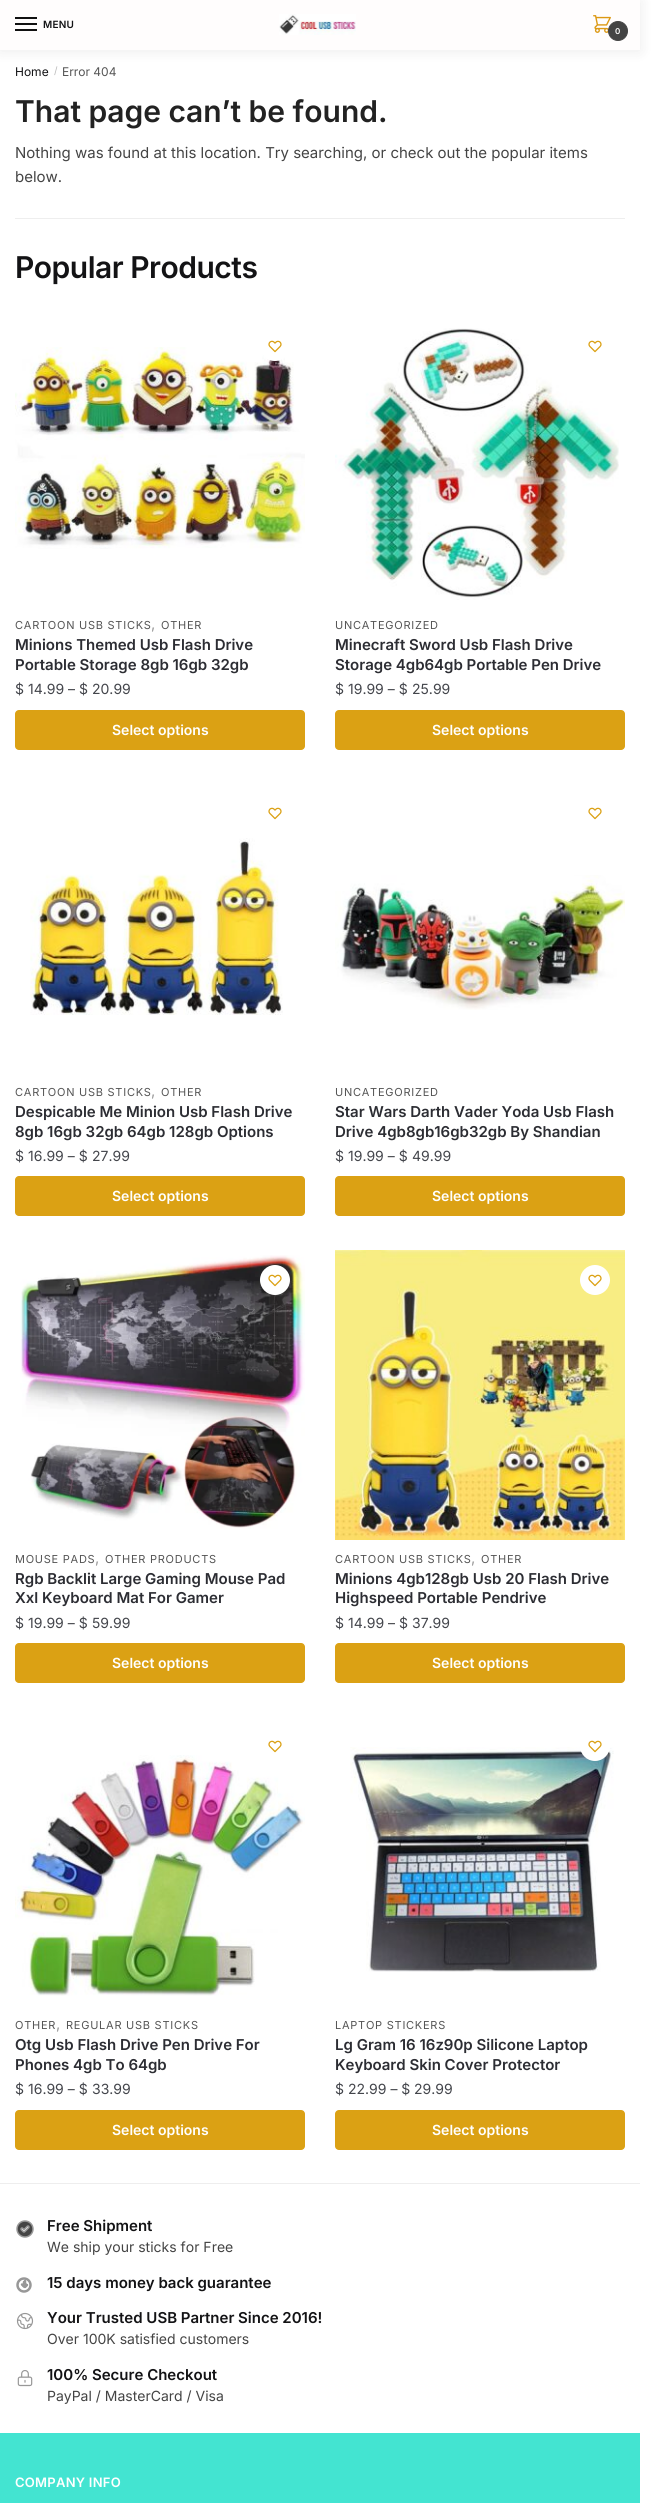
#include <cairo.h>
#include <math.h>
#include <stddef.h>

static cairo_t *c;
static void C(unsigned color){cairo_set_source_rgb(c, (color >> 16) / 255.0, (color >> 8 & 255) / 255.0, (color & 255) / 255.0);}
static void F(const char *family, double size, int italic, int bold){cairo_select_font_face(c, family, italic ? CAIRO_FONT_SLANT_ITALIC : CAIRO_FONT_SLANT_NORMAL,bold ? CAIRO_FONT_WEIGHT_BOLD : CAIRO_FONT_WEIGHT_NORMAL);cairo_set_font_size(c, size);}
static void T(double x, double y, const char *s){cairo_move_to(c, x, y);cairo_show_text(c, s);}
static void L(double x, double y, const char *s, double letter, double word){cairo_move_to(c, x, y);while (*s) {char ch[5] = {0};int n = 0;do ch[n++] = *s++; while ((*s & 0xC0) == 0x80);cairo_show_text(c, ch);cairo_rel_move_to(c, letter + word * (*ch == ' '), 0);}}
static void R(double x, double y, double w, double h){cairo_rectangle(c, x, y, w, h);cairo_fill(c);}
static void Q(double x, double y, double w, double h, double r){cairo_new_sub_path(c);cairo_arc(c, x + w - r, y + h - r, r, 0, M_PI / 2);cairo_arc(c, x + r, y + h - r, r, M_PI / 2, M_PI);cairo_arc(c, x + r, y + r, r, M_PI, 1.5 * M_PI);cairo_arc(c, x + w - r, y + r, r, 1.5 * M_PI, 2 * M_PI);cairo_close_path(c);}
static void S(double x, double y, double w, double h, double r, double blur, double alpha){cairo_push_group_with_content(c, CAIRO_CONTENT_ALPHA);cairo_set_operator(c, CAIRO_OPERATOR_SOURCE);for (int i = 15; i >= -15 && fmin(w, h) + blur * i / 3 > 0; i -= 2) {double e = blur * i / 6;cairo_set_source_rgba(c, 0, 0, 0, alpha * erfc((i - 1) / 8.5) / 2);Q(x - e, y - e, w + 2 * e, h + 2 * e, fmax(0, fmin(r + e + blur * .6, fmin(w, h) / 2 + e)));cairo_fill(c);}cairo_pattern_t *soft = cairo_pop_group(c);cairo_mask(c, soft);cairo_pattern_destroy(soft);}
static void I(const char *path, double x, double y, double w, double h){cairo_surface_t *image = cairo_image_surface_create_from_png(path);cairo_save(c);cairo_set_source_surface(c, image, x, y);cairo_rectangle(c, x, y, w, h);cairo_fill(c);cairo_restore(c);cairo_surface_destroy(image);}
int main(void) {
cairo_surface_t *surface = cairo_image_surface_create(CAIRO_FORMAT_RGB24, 655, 2503);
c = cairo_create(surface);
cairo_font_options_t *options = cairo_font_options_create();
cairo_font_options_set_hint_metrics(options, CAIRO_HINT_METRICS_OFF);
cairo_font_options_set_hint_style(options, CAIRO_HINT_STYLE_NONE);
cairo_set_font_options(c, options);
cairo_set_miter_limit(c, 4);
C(0xffffff);
cairo_paint(c);
C(0x000000);
S(0,1,640,50,0,7.5,.08);
C(0xfffdfd);
R(0,0,640,50);
C(0x111111);
R(15,17,22,2);
R(15,23,22,2);
F("Inter SemiBold",10,0,0);
C(0x131315);
L(43,28,"MENU",.25,0);
C(0x111111);
R(15,29,22,2);
I("1.png",279,14,77,21);
I("2.png",593,15,18,18);
C(0x444444);
cairo_arc(c,618,31,9.5,0,2 * M_PI);
cairo_fill_preserve(c);
cairo_set_line_width(c,1);
cairo_stroke(c);
F("Inter SemiBold",8,0,0);
C(0xffffff);
T(615,34,"0");
F("Inter",12,0,0);
C(0x131315);
T(15,76,"Home");
F("Inter",10,0,0);
C(0xbbbbbb);
T(54,74,"/");
F("Inter",12,0,0);
C(0x555555);
T(62,76,"Error 404");
F("Inter SemiBold",30,0,0);
C(0x222222);
T(15,122,"That page can’t be found.");
F("Inter",15,0,0);
C(0x444444);
T(15,158,"Nothing was found at this location. Try searching, or check out the popular items");
T(15,182,"below.");
C(0xeeeeee);
R(15,218,610,1);
F("Inter SemiBold",30,0,0);
C(0x131315);
L(15,278,"Popular Products",-.5,0);
I("4.png",15,347,290,202);
C(0xffffff);
cairo_arc(c,275,346,15,0,2 * M_PI);
cairo_fill(c);
I("3.png",268,340,14,13);
F("Inter",11,0,0);
C(0x555555);
L(15,629,"CARTOON USB STICKS",.75,0);
F("Inter",15,0,0);
C(0x999999);
L(151,629,",",.75,0);
F("Inter",11,0,0);
C(0x555555);
L(161,629,"OTHER",.75,0);
F("Inter SemiBold",15,0,0);
C(0x2c2d33);
T(15,650,"Minions Themed Usb Flash Drive");
T(15,670,"Portable Storage 8gb 16gb 32gb");
F("Inter",14,0,0);
C(0x43454b);
T(15,694,"$");
T(28,694,"14.99 – $");
T(92,694,"20.99");
C(0xdba114);
Q(15,710,290,40,4);
cairo_fill(c);
F("Inter SemiBold",14,0,0);
C(0xffffff);
T(112,735,"Select options");
I("5.png",335,328,284,272);
I("3.png",588,340,14,13);
F("Inter",11,0,0);
C(0x555555);
L(335,629,"UNCATEGORIZED",.75,0);
F("Inter SemiBold",15,0,0);
C(0x2c2d33);
T(335,650,"Minecraft Sword Usb Flash Drive");
T(335,670,"Storage 4gb64gb Portable Pen Drive");
F("Inter",14,0,0);
C(0x43454b);
T(335,694,"$");
T(348,694,"19.99 – $");
T(412,694,"25.99");
C(0xdba114);
Q(335,710,290,40,4);
cairo_fill(c);
F("Inter SemiBold",14,0,0);
C(0xffffff);
T(432,735,"Select options");
I("3.png",268,807,14,13);
I("6.png",30,838,253,177);
F("Inter",11,0,0);
C(0x555555);
L(15,1096,"CARTOON USB STICKS",.75,0);
F("Inter",15,0,0);
C(0x999999);
L(151,1096,",",.75,0);
F("Inter",11,0,0);
C(0x555555);
L(161,1096,"OTHER",.75,0);
F("Inter SemiBold",15,0,0);
C(0x2c2d33);
T(15,1117,"Despicable Me Minion Usb Flash Drive");
T(15,1137,"8gb 16gb 32gb 64gb 128gb Options");
F("Inter",14,0,0);
C(0x43454b);
T(15,1161,"$");
T(28,1161,"16.99 – $");
T(92,1161,"27.99");
C(0xdba114);
Q(15,1176,290,40,4);
cairo_fill(c);
F("Inter SemiBold",14,0,0);
C(0xffffff);
T(112,1201,"Select options");
I("3.png",588,807,14,13);
I("7.png",335,875,290,135);
F("Inter",11,0,0);
C(0x555555);
L(335,1096,"UNCATEGORIZED",.75,0);
F("Inter SemiBold",15,0,0);
C(0x2c2d33);
T(335,1117,"Star Wars Darth Vader Yoda Usb Flash");
T(335,1137,"Drive 4gb8gb16gb32gb By Shandian");
F("Inter",14,0,0);
C(0x43454b);
T(335,1161,"$");
T(348,1161,"19.99 – $");
T(412,1161,"49.99");
C(0xdba114);
Q(335,1176,290,40,4);
cairo_fill(c);
F("Inter SemiBold",14,0,0);
C(0xffffff);
T(432,1201,"Select options");
I("8.png",20,1255,285,274);
cairo_arc(c,275,1280,15,0,2 * M_PI);
cairo_fill(c);
I("3.png",268,1274,14,13);
F("Inter",11,0,0);
C(0x555555);
L(15,1563,"MOUSE PADS",.75,0);
F("Inter",15,0,0);
C(0x999999);
L(95,1563,",",.75,0);
F("Inter",11,0,0);
C(0x555555);
L(105,1563,"OTHER PRODUCTS",.75,0);
F("Inter SemiBold",15,0,0);
C(0x2c2d33);
T(15,1584,"Rgb Backlit Large Gaming Mouse Pad");
T(15,1603,"Xxl Keyboard Mat For Gamer");
F("Inter",14,0,0);
C(0x43454b);
T(15,1628,"$");
T(28,1628,"19.99 – $");
T(92,1628,"59.99");
C(0xdba114);
Q(15,1643,290,40,4);
cairo_fill(c);
F("Inter SemiBold",14,0,0);
C(0xffffff);
T(112,1668,"Select options");
I("9.png",335,1250,290,290);
cairo_arc(c,595,1280,15,0,2 * M_PI);
cairo_fill(c);
I("3.png",588,1274,14,13);
F("Inter",11,0,0);
C(0x555555);
L(335,1563,"CARTOON USB STICKS",.75,0);
F("Inter",15,0,0);
C(0x999999);
L(471,1563,",",.75,0);
F("Inter",11,0,0);
C(0x555555);
L(481,1563,"OTHER",.75,0);
F("Inter SemiBold",15,0,0);
C(0x2c2d33);
T(335,1584,"Minions 4gb128gb Usb 20 Flash Drive");
T(335,1603,"Highspeed Portable Pendrive");
F("Inter",14,0,0);
C(0x43454b);
T(335,1628,"$");
T(348,1628,"14.99 – $");
T(412,1628,"37.99");
C(0xdba114);
Q(335,1643,290,40,4);
cairo_fill(c);
F("Inter SemiBold",14,0,0);
C(0xffffff);
T(432,1668,"Select options");
I("3.png",268,1740,14,13);
I("10.png",15,1755,290,241);
F("Inter",11,0,0);
C(0x555555);
L(15,2029,"OTHER",.75,0);
F("Inter",15,0,0);
C(0x999999);
L(56,2029,",",.75,0);
F("Inter",11,0,0);
C(0x555555);
L(66,2029,"REGULAR USB STICKS",.75,0);
F("Inter SemiBold",15,0,0);
C(0x2c2d33);
T(15,2050,"Otg Usb Flash Drive Pen Drive For");
T(15,2070,"Phones 4gb To 64gb");
F("Inter",14,0,0);
C(0x43454b);
T(15,2094,"$");
T(28,2094,"16.99 – $");
T(92,2094,"33.99");
C(0xdba114);
Q(15,2110,290,40,4);
cairo_fill(c);
F("Inter SemiBold",14,0,0);
C(0xffffff);
T(112,2135,"Select options");
I("11.png",350,1747,264,225);
cairo_arc(c,595,1746,15,0,2 * M_PI);
cairo_fill(c);
I("3.png",588,1740,14,13);
F("Inter",11,0,0);
C(0x555555);
L(335,2029,"LAPTOP STICKERS",.75,0);
F("Inter SemiBold",15,0,0);
C(0x2c2d33);
T(335,2050,"Lg Gram 16 16z90p Silicone Laptop");
T(335,2070,"Keyboard Skin Cover Protector");
F("Inter",14,0,0);
C(0x43454b);
T(335,2094,"$");
T(348,2094,"22.99 – $");
T(414,2094,"29.99");
C(0xdba114);
Q(335,2110,290,40,4);
cairo_fill(c);
F("Inter SemiBold",14,0,0);
C(0xffffff);
T(432,2135,"Select options");
C(0xeeeeee);
R(0,2183,640,1);
F("Inter SemiBold",15,0,0);
C(0x131315);
T(47,2231,"Free Shipment");
I("12.png",16,2220,18,18);
F("Inter",14,0,0);
C(0x444444);
T(47,2252,"We ship your sticks for Free");
I("13.png",16,2277,16,16);
F("Inter SemiBold",15,0,0);
C(0x131315);
T(47,2288,"15 days money back guarantee");
T(47,2323,"Your Trusted USB Partner Since 2016!");
I("14.png",16,2312,18,18);
F("Inter",14,0,0);
C(0x444444);
T(47,2344,"Over 100K satisfied customers");
F("Inter SemiBold",15,0,0);
C(0x131315);
T(47,2380,"100% Secure Checkout");
I("15.png",17,2370,16,17);
F("Inter",14,0,0);
C(0x444444);
T(47,2401,"PayPal / MasterCard / Visa");
C(0x43e4d1);
R(0,2433,640,70);
F("Inter SemiBold",13,0,0);
C(0xffffff);
L(15,2487,"COMPANY INFO",.25,0);
cairo_surface_write_to_png(surface, "o.png");
cairo_font_options_destroy(options);
cairo_destroy(c);
cairo_surface_destroy(surface);
return 0;
}
